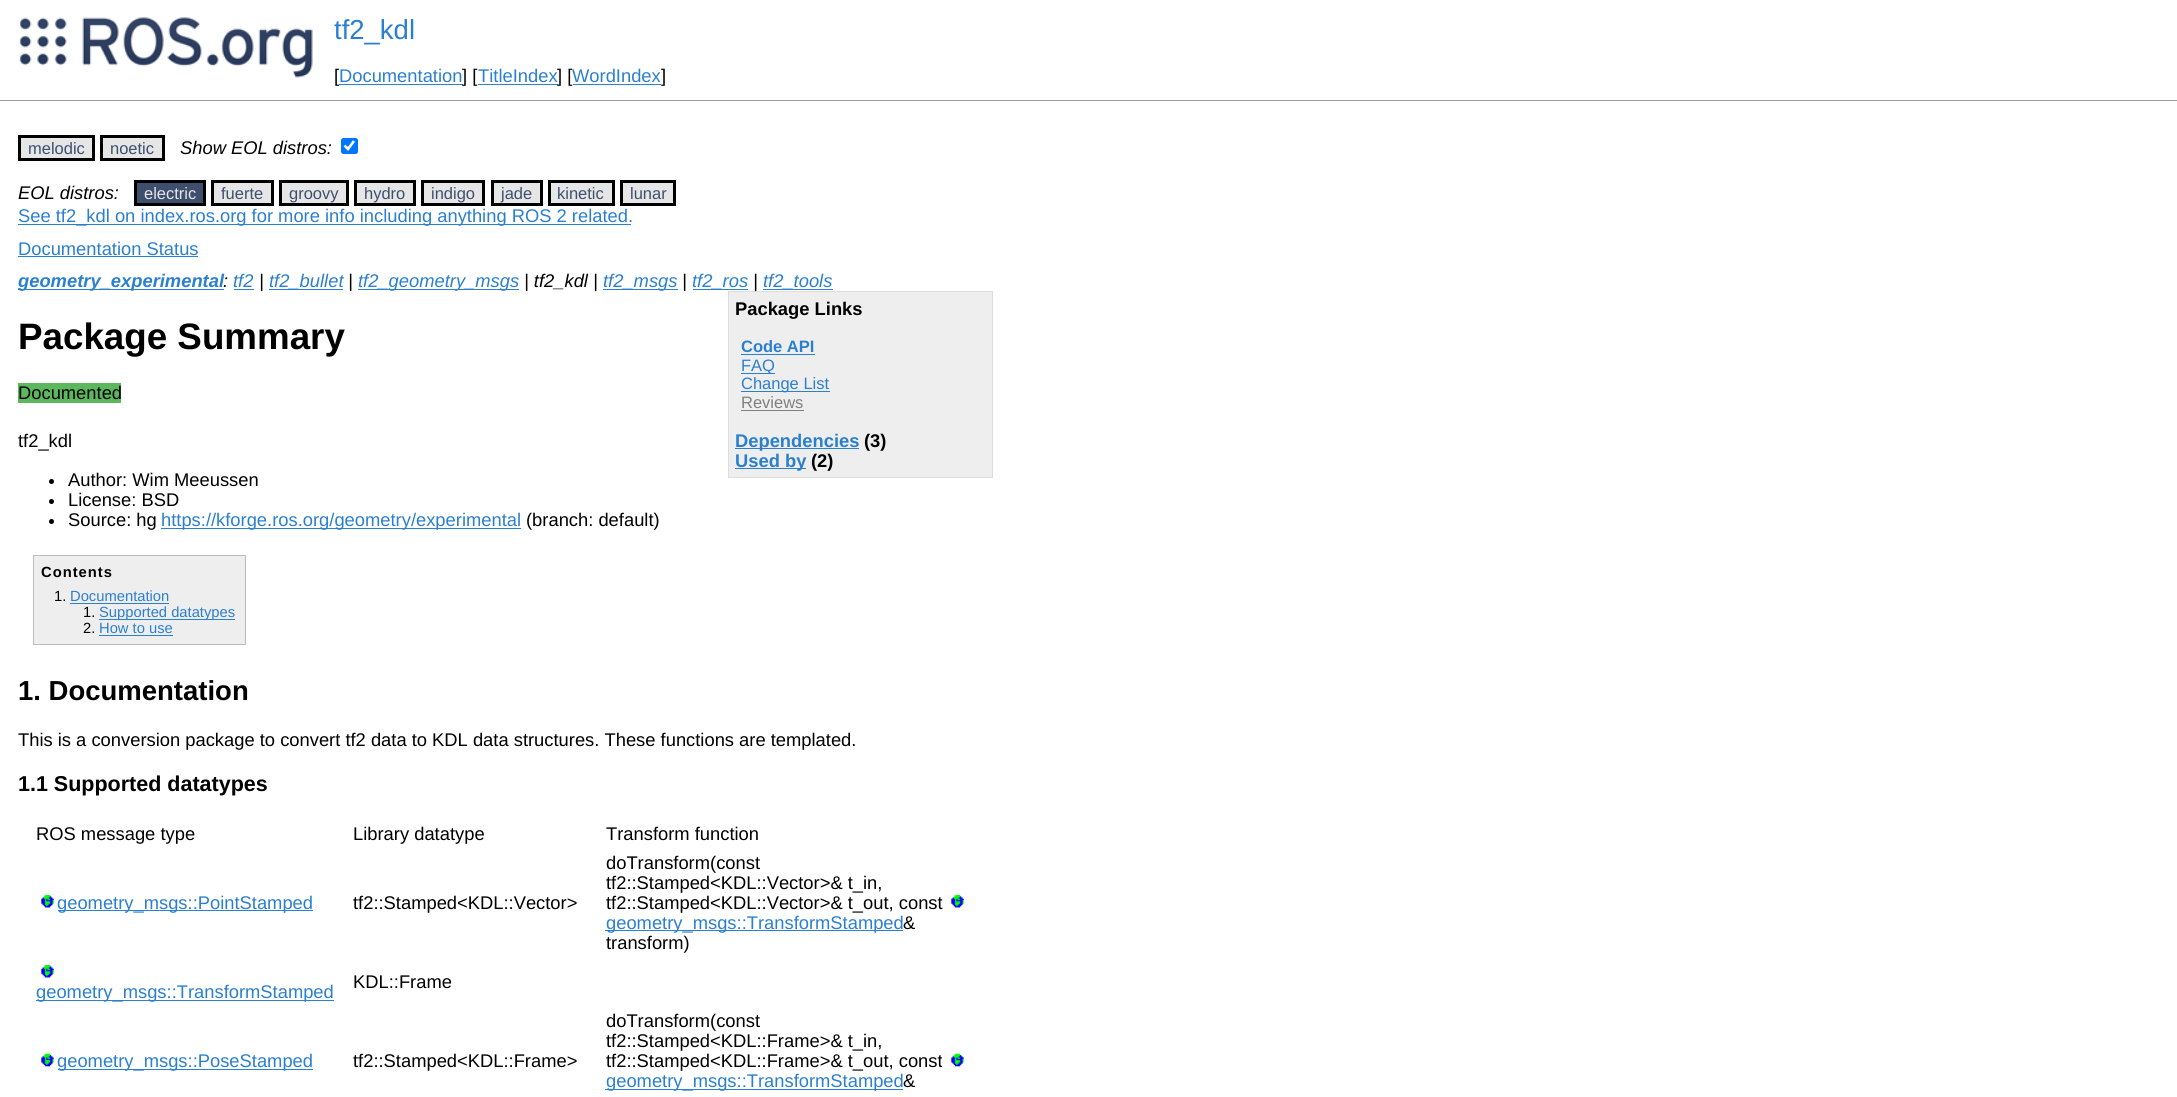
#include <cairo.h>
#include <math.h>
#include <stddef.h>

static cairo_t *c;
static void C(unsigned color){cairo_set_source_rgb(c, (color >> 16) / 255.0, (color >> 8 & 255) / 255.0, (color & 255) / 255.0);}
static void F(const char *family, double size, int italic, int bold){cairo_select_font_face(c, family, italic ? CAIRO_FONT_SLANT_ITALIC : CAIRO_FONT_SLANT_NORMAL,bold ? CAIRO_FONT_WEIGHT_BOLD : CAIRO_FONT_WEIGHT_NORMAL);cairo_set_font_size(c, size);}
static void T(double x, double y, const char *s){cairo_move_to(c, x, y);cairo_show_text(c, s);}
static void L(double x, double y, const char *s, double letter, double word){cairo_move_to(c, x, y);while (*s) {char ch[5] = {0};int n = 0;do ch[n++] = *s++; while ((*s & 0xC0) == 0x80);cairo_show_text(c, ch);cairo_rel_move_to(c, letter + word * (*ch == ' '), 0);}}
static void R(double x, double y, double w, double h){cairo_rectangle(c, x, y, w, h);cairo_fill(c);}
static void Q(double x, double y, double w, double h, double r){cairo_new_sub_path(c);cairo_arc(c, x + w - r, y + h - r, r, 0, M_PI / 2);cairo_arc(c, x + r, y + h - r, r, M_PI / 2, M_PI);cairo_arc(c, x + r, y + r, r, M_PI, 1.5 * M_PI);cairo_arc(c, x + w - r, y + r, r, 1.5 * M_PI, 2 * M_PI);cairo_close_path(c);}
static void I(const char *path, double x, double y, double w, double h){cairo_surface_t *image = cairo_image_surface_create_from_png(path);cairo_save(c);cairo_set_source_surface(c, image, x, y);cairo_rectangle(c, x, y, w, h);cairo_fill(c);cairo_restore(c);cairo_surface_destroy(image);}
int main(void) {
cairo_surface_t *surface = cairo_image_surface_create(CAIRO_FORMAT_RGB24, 2177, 1097);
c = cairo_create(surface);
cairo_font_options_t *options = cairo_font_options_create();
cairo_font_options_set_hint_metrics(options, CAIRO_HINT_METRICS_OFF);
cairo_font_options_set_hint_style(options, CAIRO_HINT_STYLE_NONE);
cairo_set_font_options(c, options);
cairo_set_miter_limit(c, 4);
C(0xffffff);
cairo_paint(c);
I("1.png",19,17,294,61);
F("Liberation Sans",27.5,0,0);
C(0x2b7fcf);
T(334,39,"tf2_kdl");
F("Liberation Sans",18.35,0,0);
C(0x000000);
T(334,82,"[");
C(0x2b7fcf);
T(339,82,"Documentation");
R(339,84,124,1);
C(0x000000);
T(462,82,"] [");
C(0x2b7fcf);
T(478,82,"TitleIndex");
R(478,84,80,1);
C(0x000000);
T(557,82,"] [");
C(0x2b7fcf);
T(572,82,"WordIndex");
R(573,84,88,1);
C(0x000000);
T(661,82,"]");
C(0x9c9c9c);
R(0,100,2177,1);
C(0xe6e6e6);
cairo_rectangle(c,19.5,136.5,74,23);
cairo_fill_preserve(c);
C(0x000000);
cairo_set_line_width(c,3);
cairo_stroke(c);
F("Liberation Sans",16.5,0,0);
C(0x3e4f6e);
T(28,154,"melodic");
C(0xe6e6e6);
cairo_rectangle(c,101.5,136.5,62,23);
cairo_fill_preserve(c);
C(0x000000);
cairo_stroke(c);
C(0x3e4f6e);
T(110,154,"noetic");
F("Liberation Sans",18.35,1,0);
C(0x000000);
T(180,154,"Show EOL distros:");
C(0x0075ff);
Q(341,138,17,16,2.5);
cairo_fill(c);
cairo_new_path(c);
cairo_move_to(c,344.5,145.5);
cairo_line_to(c,348,149);
cairo_line_to(c,354,141);
C(0xffffff);
cairo_set_line_width(c,2.6);
cairo_stroke(c);
C(0x000000);
T(18,199,"EOL distros:");
C(0x3e4f6e);
cairo_rectangle(c,135.5,181.5,69,23);
cairo_fill_preserve(c);
C(0x000000);
cairo_set_line_width(c,3);
cairo_stroke(c);
F("Liberation Sans",16.5,0,0);
C(0xe6e6e6);
T(144,199,"electric");
cairo_rectangle(c,212.5,181.5,60,23);
cairo_fill_preserve(c);
C(0x000000);
cairo_stroke(c);
C(0x3e4f6e);
T(221,199,"fuerte");
C(0xe6e6e6);
cairo_rectangle(c,280.5,181.5,67,23);
cairo_fill_preserve(c);
C(0x000000);
cairo_stroke(c);
C(0x3e4f6e);
T(289,199,"groovy");
C(0xe6e6e6);
cairo_rectangle(c,355.5,181.5,59,23);
cairo_fill_preserve(c);
C(0x000000);
cairo_stroke(c);
C(0x3e4f6e);
T(364,199,"hydro");
C(0xe6e6e6);
cairo_rectangle(c,422.5,181.5,61,23);
cairo_fill_preserve(c);
C(0x000000);
cairo_stroke(c);
C(0x3e4f6e);
T(431,199,"indigo");
C(0xe6e6e6);
cairo_rectangle(c,492.5,181.5,49,23);
cairo_fill_preserve(c);
C(0x000000);
cairo_stroke(c);
C(0x3e4f6e);
T(501,199,"jade");
C(0xe6e6e6);
cairo_rectangle(c,549.5,181.5,64,23);
cairo_fill_preserve(c);
C(0x000000);
cairo_stroke(c);
C(0x3e4f6e);
T(557,199,"kinetic");
C(0xe6e6e6);
cairo_rectangle(c,621.5,181.5,53,23);
cairo_fill_preserve(c);
C(0x000000);
cairo_stroke(c);
C(0x3e4f6e);
T(630,199,"lunar");
C(0x2b7fcf);
R(18,224,613,1);
F("Liberation Sans",18.35,0,0);
T(18,222,"See tf2_kdl on index.ros.org for more info including anything ROS 2 related.");
T(18,255,"Documentation Status");
R(18,256,180,1);
R(18,289,206,1);
F("Liberation Sans",18.35,1,1);
T(18,287,"geometry_experimental");
F("Liberation Sans",18.35,1,0);
C(0x000000);
T(223,287,":");
C(0x2b7fcf);
T(233,287,"tf2");
R(234,289,20,1);
C(0x000000);
T(259,287,"|");
C(0x2b7fcf);
R(269,289,74,1);
T(269,287,"tf2_bullet");
C(0x000000);
T(348,287,"|");
C(0x2b7fcf);
R(358,289,161,1);
T(358,287,"tf2_geometry_msgs");
C(0x000000);
T(524,287,"| tf2_kdl |");
C(0x2b7fcf);
R(603,289,75,1);
T(603,287,"tf2_msgs");
C(0x000000);
T(682,287,"|");
C(0x2b7fcf);
R(693,289,55,1);
T(692,287,"tf2_ros");
C(0xeeeeee);
cairo_rectangle(c,728.5,291.5,264,186);
cairo_fill_preserve(c);
C(0xdddddd);
cairo_set_line_width(c,1);
cairo_stroke(c);
C(0x000000);
T(753,287,"|");
C(0x2b7fcf);
R(763,289,70,1);
T(763,287,"tf2_tools");
F("Liberation Sans",36.75,0,1);
C(0x000000);
T(18,349,"Package Summary");
F("Liberation Sans",18.35,0,1);
T(735,315,"Package Links");
F("Liberation Sans",16.5,0,1);
C(0x2b7fcf);
T(741,352,"Code API");
R(741,354,74,1);
R(741,373,34,1);
F("Liberation Sans",16.5,0,0);
T(741,371,"FAQ");
R(741,391,89,1);
T(741,389,"Change List");
C(0x808080);
T(741,408,"Reviews");
R(741,410,63,1);
C(0x2b7fcf);
R(735,448,124,1);
F("Liberation Sans",18.35,0,1);
T(735,447,"Dependencies");
C(0x000000);
T(864,447,"(3)");
C(0x2b7fcf);
R(735,468,71,1);
T(735,467,"Used by");
C(0x000000);
T(811,467,"(2)");
C(0x5cb85c);
R(18,383,103,20);
F("Liberation Sans",18.35,0,0);
C(0x000000);
T(18,399,"Documented");
T(18,447,"tf2_kdl");
cairo_new_path(c);
cairo_arc(c,51.5,481.5,2.5,0,2 * M_PI);
cairo_fill(c);
T(68,486,"Author: Wim Meeussen");
cairo_new_path(c);
cairo_arc(c,51.5,501.5,2.5,0,2 * M_PI);
cairo_fill(c);
T(68,506,"License: BSD");
cairo_new_path(c);
cairo_arc(c,51.5,521.5,2.5,0,2 * M_PI);
cairo_fill(c);
T(68,526,"Source: hg");
C(0x2b7fcf);
R(161,528,360,1);
T(161,526,"https://kforge.ros.org/geometry/experimental");
C(0x000000);
T(526,526,"(branch: default)");
C(0xeeeeee);
cairo_rectangle(c,33.5,555.5,212,89);
cairo_fill_preserve(c);
C(0xbbbbbb);
cairo_stroke(c);
F("Liberation Sans",14.75,0,1);
C(0x000000);
L(41,577,"Contents",1,0);
F("Liberation Sans",14.75,0,0);
T(54,601,"1.");
C(0x2b7fcf);
T(70,601,"Documentation");
R(70,603,99,1);
C(0x000000);
T(83,617,"1.");
C(0x2b7fcf);
R(99,619,136,1);
T(99,617,"Supported datatypes");
C(0x000000);
T(83,633,"2.");
C(0x2b7fcf);
T(99,633,"How to use");
R(99,635,74,1);
F("Liberation Sans",27.5,0,1);
C(0x000000);
T(18,700,"1. Documentation");
F("Liberation Sans",18.35,0,0);
T(18,746,"This is a conversion package to convert tf2 data to KDL data structures. These functions are templated.");
F("Liberation Sans",21.5,0,1);
T(18,791,"1.1 Supported datatypes");
F("Liberation Sans",18.35,0,0);
T(36,840,"ROS message type");
T(353,840,"Library datatype");
T(606,840,"Transform function");
I("2.png",41,895,13,13);
C(0x2b7fcf);
R(58,910,255,1);
T(57,909,"geometry_msgs::PointStamped");
C(0x000000);
T(353,909,"tf2::Stamped<KDL::Vector>");
T(606,869,"doTransform(const");
T(606,889,"tf2::Stamped<KDL::Vector>& t_in,");
T(606,909,"tf2::Stamped<KDL::Vector>& t_out, const");
I("3.png",951,895,13,13);
C(0x2b7fcf);
R(605,930,298,1);
T(606,929,"geometry_msgs::TransformStamped");
C(0x000000);
T(903,929,"&");
T(606,949,"transform)");
T(353,988,"KDL::Frame");
I("2.png",41,965,13,13);
C(0x2b7fcf);
R(36,1000,298,1);
T(36,998,"geometry_msgs::TransformStamped");
I("4.png",41,1053,13,14);
R(58,1069,255,1);
T(57,1067,"geometry_msgs::PoseStamped");
C(0x000000);
T(353,1067,"tf2::Stamped<KDL::Frame>");
T(606,1027,"doTransform(const");
T(606,1047,"tf2::Stamped<KDL::Frame>& t_in,");
T(606,1067,"tf2::Stamped<KDL::Frame>& t_out, const");
I("5.png",951,1053,13,14);
C(0x2b7fcf);
R(605,1089,298,1);
T(606,1087,"geometry_msgs::TransformStamped");
C(0x000000);
T(903,1087,"&");
cairo_surface_write_to_png(surface, "o.png");
cairo_font_options_destroy(options);
cairo_destroy(c);
cairo_surface_destroy(surface);
return 0;
}
